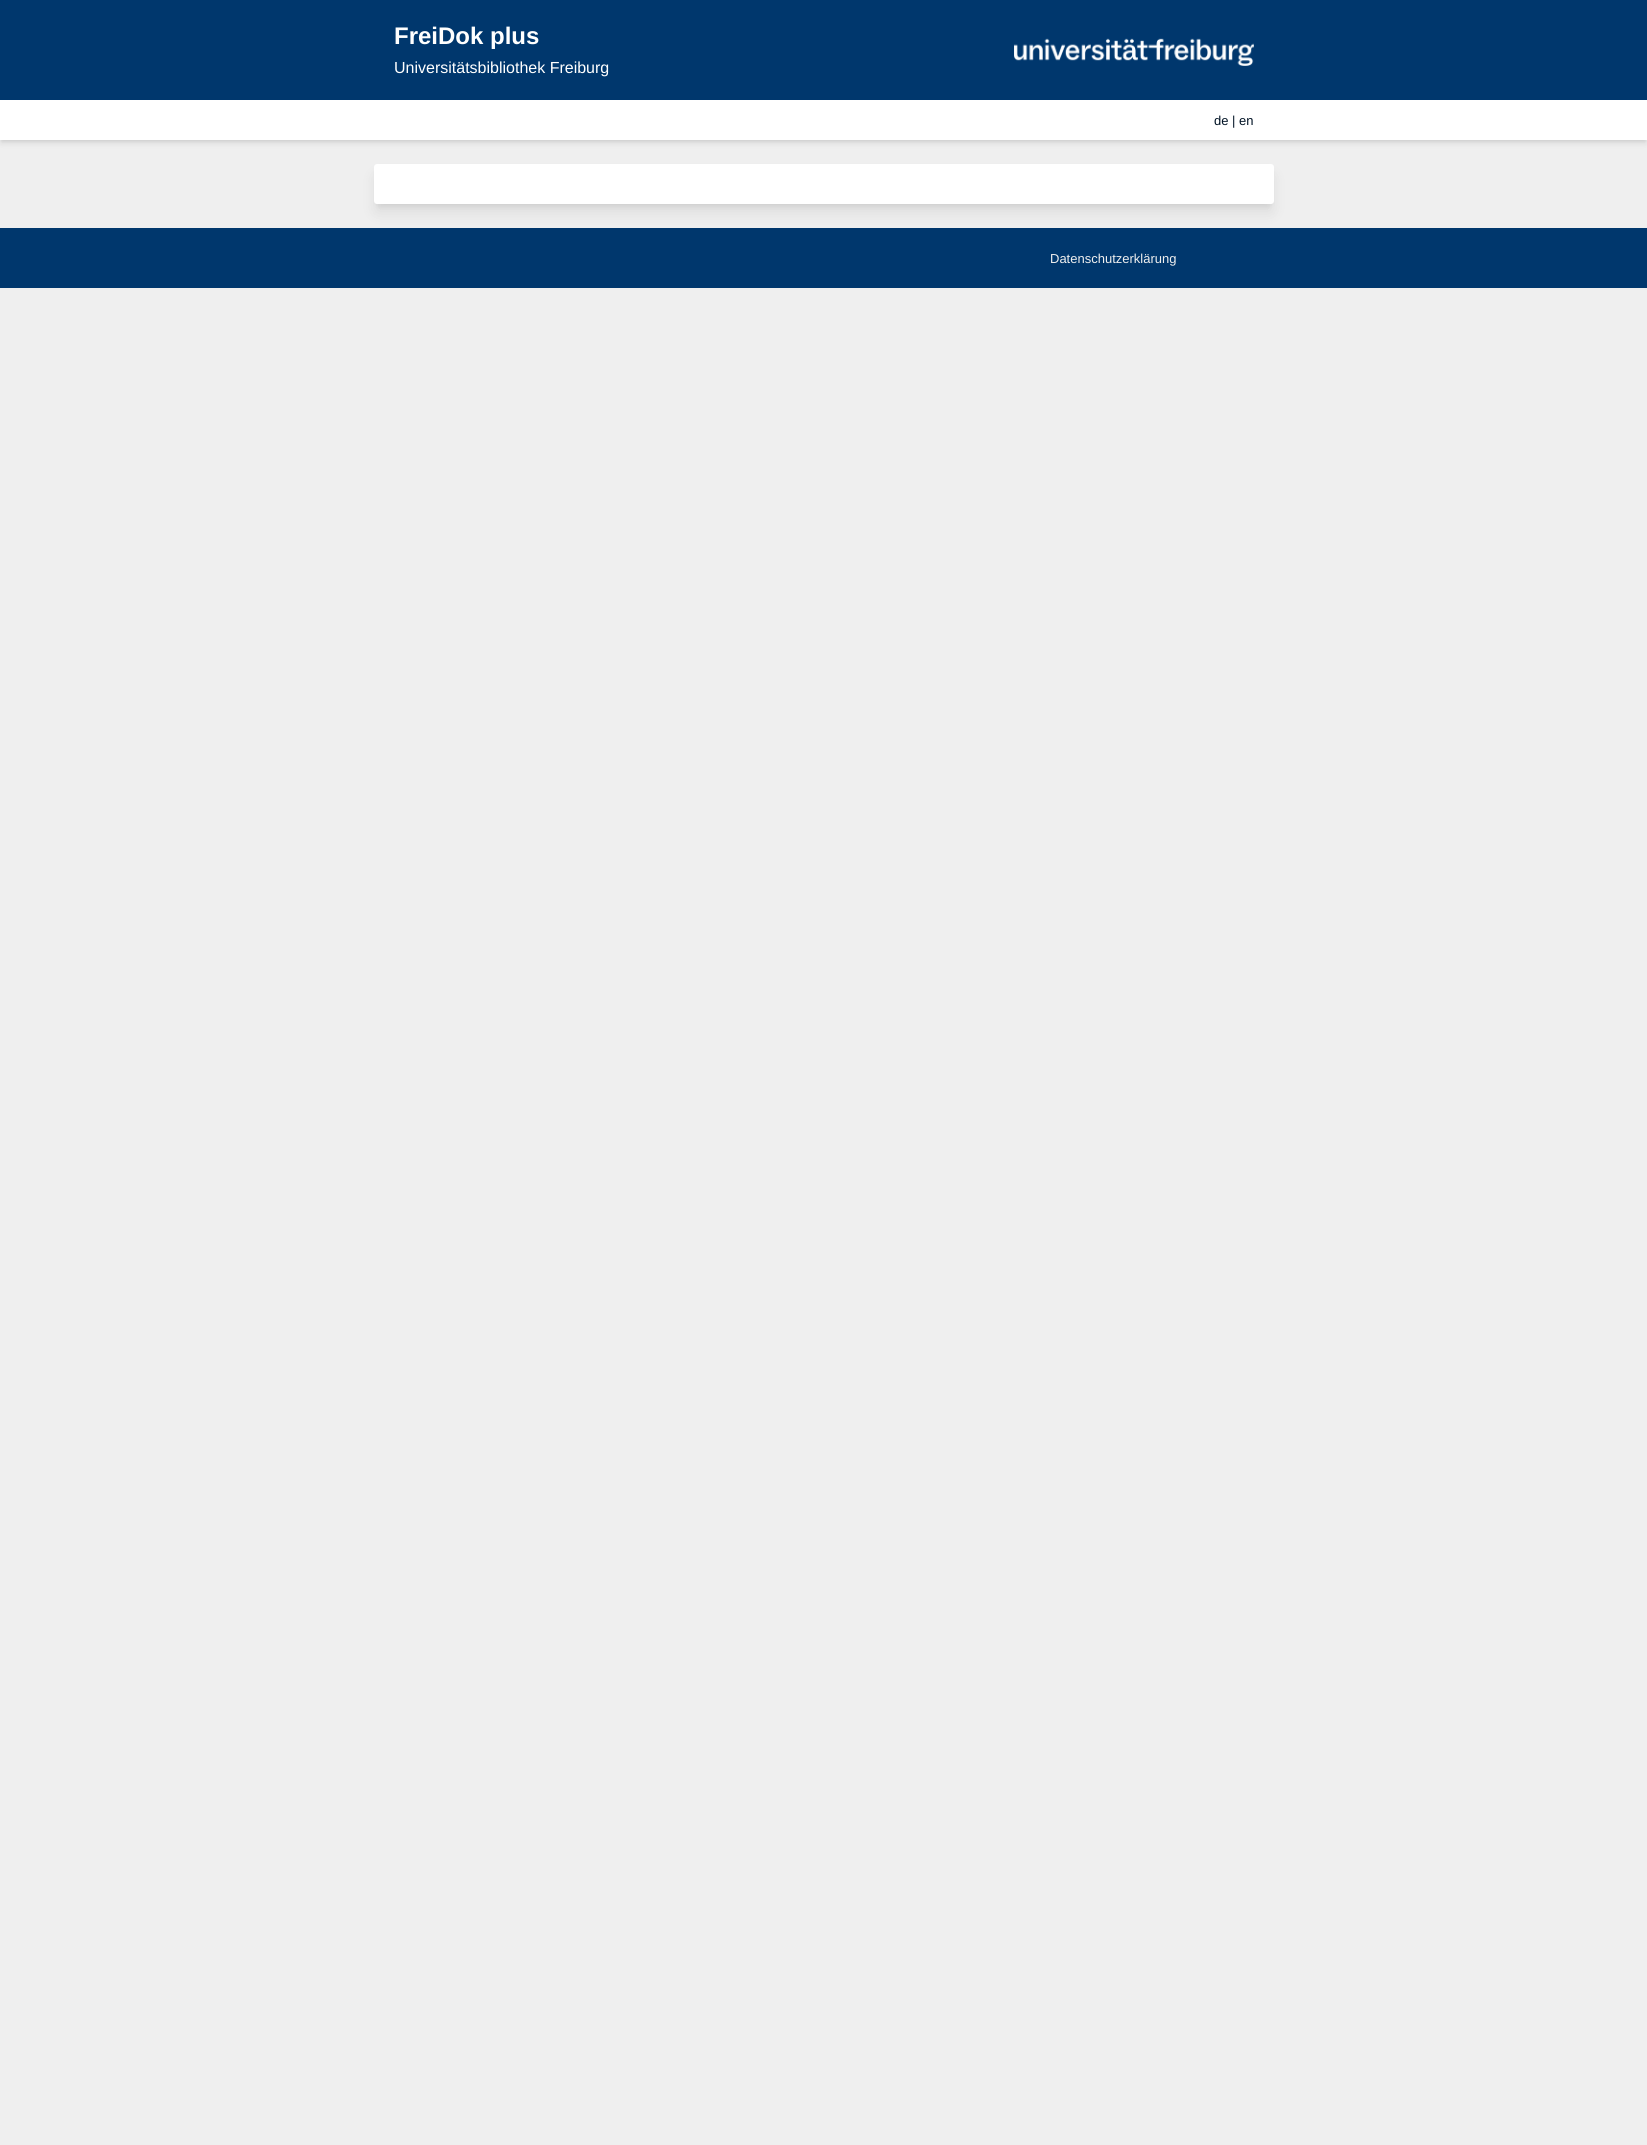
#include <cairo.h>
#include <math.h>
#include <stddef.h>

static cairo_t *c;
static void C(unsigned color){cairo_set_source_rgb(c, (color >> 16) / 255.0, (color >> 8 & 255) / 255.0, (color & 255) / 255.0);}
static void F(const char *family, double size, int italic, int bold){cairo_select_font_face(c, family, italic ? CAIRO_FONT_SLANT_ITALIC : CAIRO_FONT_SLANT_NORMAL,bold ? CAIRO_FONT_WEIGHT_BOLD : CAIRO_FONT_WEIGHT_NORMAL);cairo_set_font_size(c, size);}
static void T(double x, double y, const char *s){cairo_move_to(c, x, y);cairo_show_text(c, s);}
static void R(double x, double y, double w, double h){cairo_rectangle(c, x, y, w, h);cairo_fill(c);}
static void Q(double x, double y, double w, double h, double r){cairo_new_sub_path(c);cairo_arc(c, x + w - r, y + h - r, r, 0, M_PI / 2);cairo_arc(c, x + r, y + h - r, r, M_PI / 2, M_PI);cairo_arc(c, x + r, y + r, r, M_PI, 1.5 * M_PI);cairo_arc(c, x + w - r, y + r, r, 1.5 * M_PI, 2 * M_PI);cairo_close_path(c);}
static void S(double x, double y, double w, double h, double r, double blur, double alpha){cairo_push_group_with_content(c, CAIRO_CONTENT_ALPHA);cairo_set_operator(c, CAIRO_OPERATOR_SOURCE);for (int i = 15; i >= -15 && fmin(w, h) + blur * i / 3 > 0; i -= 2) {double e = blur * i / 6;cairo_set_source_rgba(c, 0, 0, 0, alpha * erfc((i - 1) / 8.5) / 2);Q(x - e, y - e, w + 2 * e, h + 2 * e, fmax(0, fmin(r + e + blur * .6, fmin(w, h) / 2 + e)));cairo_fill(c);}cairo_pattern_t *soft = cairo_pop_group(c);cairo_mask(c, soft);cairo_pattern_destroy(soft);}
static void I(const char *path, double x, double y, double w, double h){cairo_surface_t *image = cairo_image_surface_create_from_png(path);cairo_save(c);cairo_set_source_surface(c, image, x, y);cairo_rectangle(c, x, y, w, h);cairo_fill(c);cairo_restore(c);cairo_surface_destroy(image);}
int main(void) {
cairo_surface_t *surface = cairo_image_surface_create(CAIRO_FORMAT_RGB24, 1647, 2145);
c = cairo_create(surface);
cairo_font_options_t *options = cairo_font_options_create();
cairo_font_options_set_hint_metrics(options, CAIRO_HINT_METRICS_OFF);
cairo_font_options_set_hint_style(options, CAIRO_HINT_STYLE_NONE);
cairo_set_font_options(c, options);
cairo_set_miter_limit(c, 4);
C(0xefefef);
cairo_paint(c);
C(0x00376d);
R(0,0,1647,100);
F("Liberation Sans",24,0,1);
C(0xffffff);
T(394,44,"FreiDok plus");
F("Liberation Sans",16,0,0);
T(394,73,"Universitätsbibliothek Freiburg");
I("1.png",1014,38,240,28);
C(0x000000);
S(2,104,1643,36,0,2,.1);
S(1,105,1645,38,0,3,.1);
C(0xffffff);
R(0,100,1647,40);
F("Liberation Sans",13,0,0);
C(0x001224);
T(1214,125,"de | en");
C(0x000000);
S(378,172,892,32,0,3,.1);
C(0x00376d);
R(0,228,1647,60);
C(0x000000);
S(377,177,894,34,0,7.5,.1);
C(0xffffff);
Q(374,164,900,40,3);
cairo_fill(c);
C(0xefefef);
T(1050,263,"Datenschutzerklärung");
cairo_surface_write_to_png(surface, "o.png");
cairo_font_options_destroy(options);
cairo_destroy(c);
cairo_surface_destroy(surface);
return 0;
}
